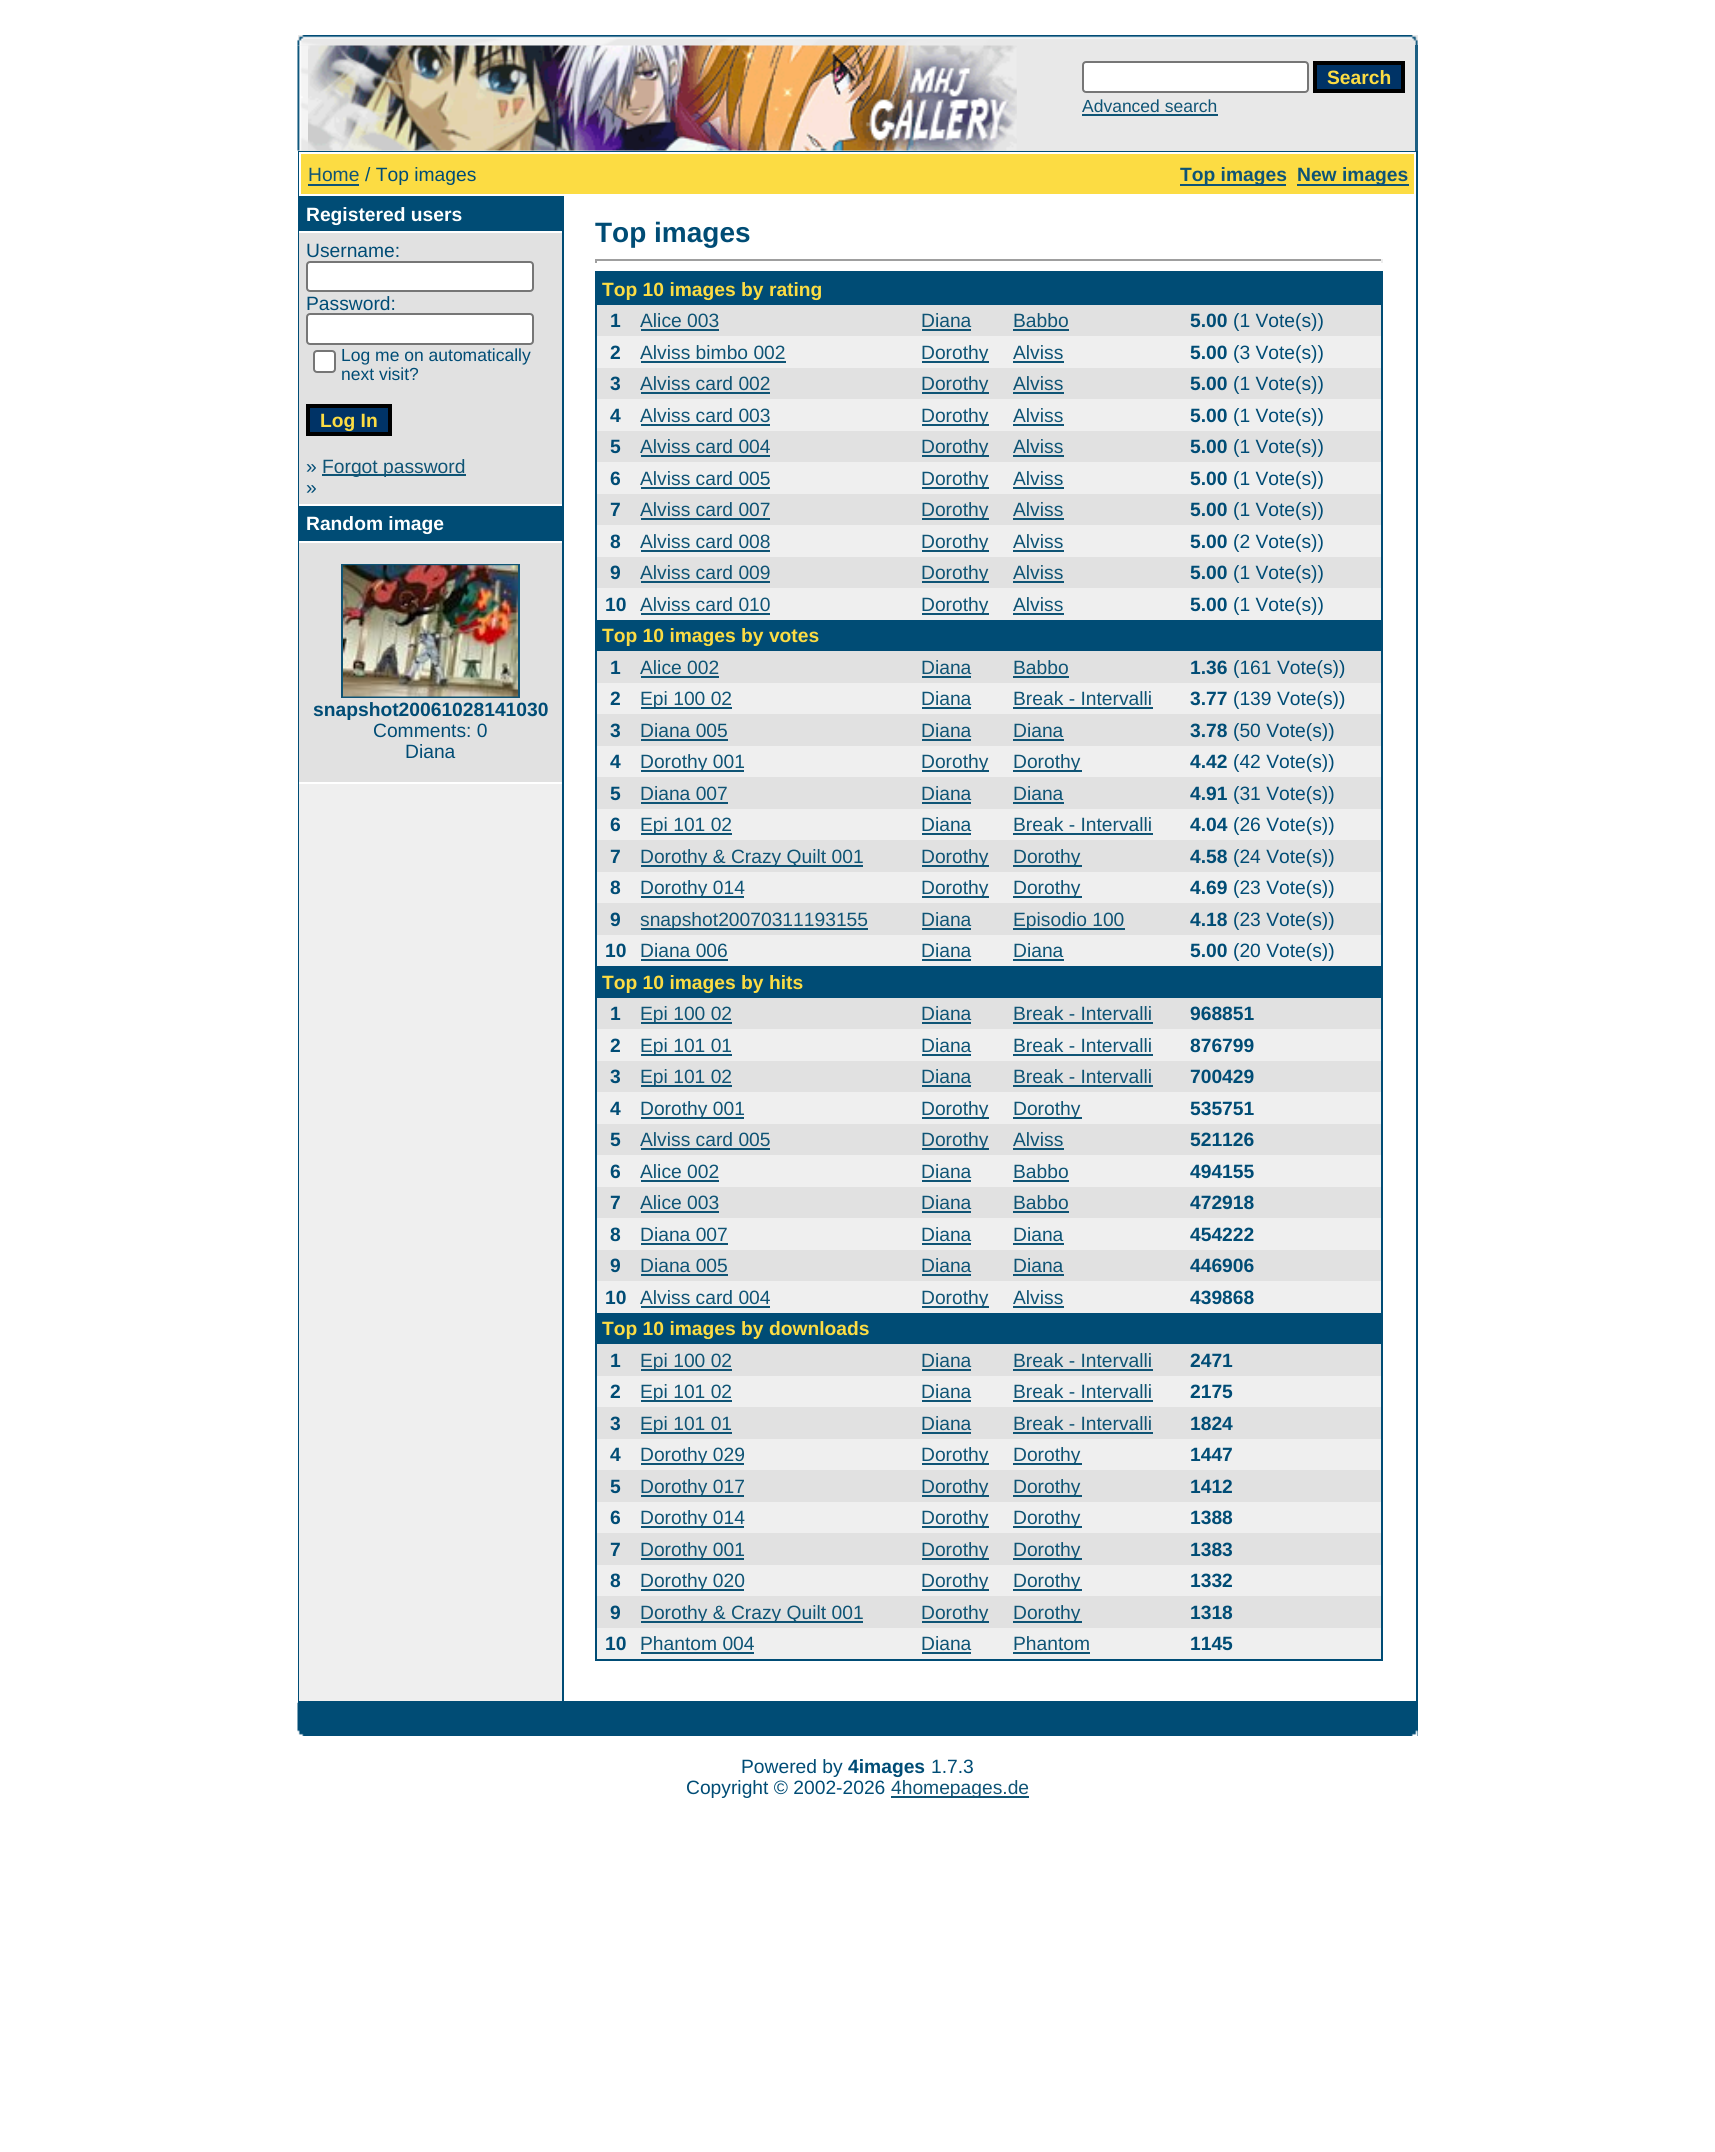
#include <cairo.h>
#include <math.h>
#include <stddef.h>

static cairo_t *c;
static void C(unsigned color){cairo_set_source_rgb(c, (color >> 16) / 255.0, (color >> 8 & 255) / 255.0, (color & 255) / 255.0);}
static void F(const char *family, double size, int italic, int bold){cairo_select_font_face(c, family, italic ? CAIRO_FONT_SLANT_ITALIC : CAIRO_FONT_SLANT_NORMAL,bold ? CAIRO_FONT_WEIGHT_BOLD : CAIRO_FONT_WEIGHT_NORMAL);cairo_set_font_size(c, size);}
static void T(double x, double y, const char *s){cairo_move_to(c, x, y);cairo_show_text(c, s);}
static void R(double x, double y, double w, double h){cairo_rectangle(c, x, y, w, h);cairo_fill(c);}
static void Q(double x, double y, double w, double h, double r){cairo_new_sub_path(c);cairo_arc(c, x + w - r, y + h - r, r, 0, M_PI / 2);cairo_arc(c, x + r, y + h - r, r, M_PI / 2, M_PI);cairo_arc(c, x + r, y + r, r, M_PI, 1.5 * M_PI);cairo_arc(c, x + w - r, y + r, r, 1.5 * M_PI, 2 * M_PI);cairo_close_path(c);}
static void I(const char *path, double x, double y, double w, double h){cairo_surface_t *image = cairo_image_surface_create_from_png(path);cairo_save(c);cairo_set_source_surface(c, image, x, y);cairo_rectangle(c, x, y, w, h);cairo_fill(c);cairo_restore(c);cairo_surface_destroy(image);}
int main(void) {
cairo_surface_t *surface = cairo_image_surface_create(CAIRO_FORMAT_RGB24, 1715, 2152);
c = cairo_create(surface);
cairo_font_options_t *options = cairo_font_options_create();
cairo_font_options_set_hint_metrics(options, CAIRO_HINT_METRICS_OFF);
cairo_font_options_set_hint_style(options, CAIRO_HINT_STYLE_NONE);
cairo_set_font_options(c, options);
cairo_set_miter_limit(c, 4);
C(0xffffff);
cairo_paint(c);
C(0xe8e8e8);
R(298,35,1120,116);
I("1.png",297,35,1121,11);
I("2.png",297,45,11,106);
I("3.png",308,45,709,106);
C(0xffffff);
Q(1083,62,225,30,3);
cairo_fill_preserve(c);
C(0x767676);
cairo_stroke(c);
C(0x003366);
cairo_rectangle(c,1315,63,88,28);
cairo_fill_preserve(c);
C(0x000000);
cairo_set_line_width(c,4);
cairo_stroke(c);
F("Liberation Sans",19.25,0,1);
C(0xfcdc43);
T(1327,84,"Search");
F("Liberation Sans",17.5,0,0);
C(0x0f5475);
T(1082,112,"Advanced search");
R(1082,114,136,2);
C(0x1d5f83);
R(1415,45,3,106);
C(0x004c75);
R(298,151,1120,1552);
C(0xffffff);
R(299,152,1117,1549);
C(0xfcdc43);
R(301,154,1113,40);
F("Liberation Sans",19.25,0,0);
C(0x0f5475);
T(308,181,"Home");
R(308,184,51,2);
C(0x004c75);
T(365,181,"/ Top images");
C(0x0f5475);
R(1180,184,106,2);
F("Liberation Sans",19.25,0,1);
T(1180,181,"Top images");
R(1297,184,112,2);
T(1297,181,"New images");
C(0xefefef);
R(299,784,263,917);
C(0x004c75);
R(299,196,263,35);
C(0xffffff);
T(306,221,"Registered users");
C(0xe1e1e1);
R(299,233,263,271);
F("Liberation Sans",19.25,0,0);
C(0x004c75);
T(306,257,"Username:");
C(0xffffff);
Q(307,262,226,29,3);
cairo_fill_preserve(c);
C(0x767676);
cairo_set_line_width(c,2);
cairo_stroke(c);
C(0x004c75);
T(306,310,"Password:");
C(0xffffff);
Q(307,314,226,30,3);
cairo_fill_preserve(c);
C(0x767676);
cairo_stroke(c);
C(0xffffff);
Q(314,351,21,21,3);
cairo_fill_preserve(c);
C(0x767676);
cairo_stroke(c);
F("Liberation Sans",17.5,0,0);
C(0x004c75);
T(341,361,"Log me on automatically");
T(341,380,"next visit?");
C(0x003366);
cairo_rectangle(c,308,406,82,28);
cairo_fill_preserve(c);
C(0x000000);
cairo_set_line_width(c,4);
cairo_stroke(c);
F("Liberation Sans",19.25,0,1);
C(0xfcdc43);
T(320,427,"Log In");
F("Liberation Sans",19.25,0,0);
C(0x004c75);
T(306,473,"»");
C(0x0f5475);
R(322,474,144,2);
T(322,473,"Forgot password");
C(0x004c75);
T(306,494,"»");
R(299,506,263,35);
F("Liberation Sans",19.25,0,1);
C(0xffffff);
T(306,530,"Random image");
C(0xe1e1e1);
R(299,543,263,239);
cairo_rectangle(c,342,565,177,132);
C(0x0f5475);
cairo_set_line_width(c,2);
cairo_stroke(c);
I("4.png",343,565,175,132);
C(0x004c75);
T(313,716,"snapshot20061028141030");
F("Liberation Sans",19.25,0,0);
T(373,737,"Comments: 0");
T(405,758,"Diana");
R(562,196,2,1505);
F("Liberation Sans",28,0,1);
T(595,242,"Top images");
C(0x9f9f9f);
R(595,259,788,2);
C(0xeeeeee);
R(1381,259,2,4);
C(0x9f9f9f);
R(595,259,2,4);
C(0x004c75);
R(595,271,788,1390);
F("Liberation Sans",19.25,0,1);
C(0xfcdc43);
T(602,296,"Top 10 images by rating");
C(0xe1e1e1);
R(597,305,784,31);
C(0x004c75);
T(610,327,"1");
F("Liberation Sans",19.25,0,0);
C(0x0f5475);
T(640,327,"Alice 003");
R(641,329,78,2);
T(921,327,"Diana");
R(922,329,49,2);
T(1013,327,"Babbo");
R(1013,329,56,2);
F("Liberation Sans",19.25,0,1);
C(0x004c75);
T(1190,327,"5.00");
F("Liberation Sans",19.25,0,0);
T(1233,327,"(1 Vote(s))");
C(0xefefef);
R(597,336,784,32);
F("Liberation Sans",19.25,0,1);
C(0x004c75);
T(610,359,"2");
F("Liberation Sans",19.25,0,0);
C(0x0f5475);
T(640,359,"Alviss bimbo 002");
R(641,361,145,2);
R(922,361,67,2);
T(921,359,"Dorothy");
T(1013,359,"Alviss");
R(1013,361,51,2);
F("Liberation Sans",19.25,0,1);
C(0x004c75);
T(1190,359,"5.00");
F("Liberation Sans",19.25,0,0);
T(1233,359,"(3 Vote(s))");
C(0xe1e1e1);
R(597,368,784,31);
F("Liberation Sans",19.25,0,1);
C(0x004c75);
T(610,390,"3");
F("Liberation Sans",19.25,0,0);
C(0x0f5475);
T(640,390,"Alviss card 002");
R(641,392,129,2);
R(922,392,67,2);
T(921,390,"Dorothy");
T(1013,390,"Alviss");
R(1013,392,51,2);
F("Liberation Sans",19.25,0,1);
C(0x004c75);
T(1190,390,"5.00");
F("Liberation Sans",19.25,0,0);
T(1233,390,"(1 Vote(s))");
C(0xefefef);
R(597,399,784,32);
F("Liberation Sans",19.25,0,1);
C(0x004c75);
T(610,422,"4");
F("Liberation Sans",19.25,0,0);
C(0x0f5475);
T(640,422,"Alviss card 003");
R(641,424,129,2);
R(922,424,67,2);
T(921,422,"Dorothy");
T(1013,422,"Alviss");
R(1013,424,51,2);
F("Liberation Sans",19.25,0,1);
C(0x004c75);
T(1190,422,"5.00");
F("Liberation Sans",19.25,0,0);
T(1233,422,"(1 Vote(s))");
C(0xe1e1e1);
R(597,431,784,31);
F("Liberation Sans",19.25,0,1);
C(0x004c75);
T(610,453,"5");
F("Liberation Sans",19.25,0,0);
C(0x0f5475);
T(640,453,"Alviss card 004");
R(641,455,129,2);
R(922,455,67,2);
T(921,453,"Dorothy");
T(1013,453,"Alviss");
R(1013,455,51,2);
F("Liberation Sans",19.25,0,1);
C(0x004c75);
T(1190,453,"5.00");
F("Liberation Sans",19.25,0,0);
T(1233,453,"(1 Vote(s))");
C(0xefefef);
R(597,462,784,32);
F("Liberation Sans",19.25,0,1);
C(0x004c75);
T(610,485,"6");
F("Liberation Sans",19.25,0,0);
C(0x0f5475);
T(640,485,"Alviss card 005");
R(641,487,129,2);
R(922,487,67,2);
T(921,485,"Dorothy");
T(1013,485,"Alviss");
R(1013,487,51,2);
F("Liberation Sans",19.25,0,1);
C(0x004c75);
T(1190,485,"5.00");
F("Liberation Sans",19.25,0,0);
T(1233,485,"(1 Vote(s))");
C(0xe1e1e1);
R(597,494,784,31);
F("Liberation Sans",19.25,0,1);
C(0x004c75);
T(610,516,"7");
F("Liberation Sans",19.25,0,0);
C(0x0f5475);
T(640,516,"Alviss card 007");
R(641,518,129,2);
R(922,518,67,2);
T(921,516,"Dorothy");
T(1013,516,"Alviss");
R(1013,518,51,2);
F("Liberation Sans",19.25,0,1);
C(0x004c75);
T(1190,516,"5.00");
F("Liberation Sans",19.25,0,0);
T(1233,516,"(1 Vote(s))");
C(0xefefef);
R(597,525,784,32);
F("Liberation Sans",19.25,0,1);
C(0x004c75);
T(610,548,"8");
F("Liberation Sans",19.25,0,0);
C(0x0f5475);
T(640,548,"Alviss card 008");
R(641,550,129,2);
R(922,550,67,2);
T(921,548,"Dorothy");
T(1013,548,"Alviss");
R(1013,550,51,2);
F("Liberation Sans",19.25,0,1);
C(0x004c75);
T(1190,548,"5.00");
F("Liberation Sans",19.25,0,0);
T(1233,548,"(2 Vote(s))");
C(0xe1e1e1);
R(597,557,784,31);
F("Liberation Sans",19.25,0,1);
C(0x004c75);
T(610,579,"9");
F("Liberation Sans",19.25,0,0);
C(0x0f5475);
T(640,579,"Alviss card 009");
R(641,581,129,2);
R(922,581,67,2);
T(921,579,"Dorothy");
T(1013,579,"Alviss");
R(1013,581,51,2);
F("Liberation Sans",19.25,0,1);
C(0x004c75);
T(1190,579,"5.00");
F("Liberation Sans",19.25,0,0);
T(1233,579,"(1 Vote(s))");
C(0xefefef);
R(597,588,784,32);
F("Liberation Sans",19.25,0,1);
C(0x004c75);
T(605,611,"10");
F("Liberation Sans",19.25,0,0);
C(0x0f5475);
T(640,611,"Alviss card 010");
R(641,613,129,2);
R(922,613,67,2);
T(921,611,"Dorothy");
T(1013,611,"Alviss");
R(1013,613,51,2);
F("Liberation Sans",19.25,0,1);
C(0x004c75);
T(1190,611,"5.00");
F("Liberation Sans",19.25,0,0);
T(1233,611,"(1 Vote(s))");
F("Liberation Sans",19.25,0,1);
C(0xfcdc43);
T(602,642,"Top 10 images by votes");
C(0xe1e1e1);
R(597,651,784,32);
C(0x004c75);
T(610,674,"1");
F("Liberation Sans",19.25,0,0);
C(0x0f5475);
T(640,674,"Alice 002");
R(641,676,78,2);
T(921,674,"Diana");
R(922,676,49,2);
T(1013,674,"Babbo");
R(1013,676,56,2);
F("Liberation Sans",19.25,0,1);
C(0x004c75);
T(1190,674,"1.36");
F("Liberation Sans",19.25,0,0);
T(1233,674,"(161 Vote(s))");
C(0xefefef);
R(597,683,784,31);
F("Liberation Sans",19.25,0,1);
C(0x004c75);
T(610,705,"2");
C(0x0f5475);
R(641,707,91,2);
F("Liberation Sans",19.25,0,0);
T(640,705,"Epi 100 02");
T(921,705,"Diana");
R(922,707,49,2);
T(1013,705,"Break - Intervalli");
R(1013,707,140,2);
F("Liberation Sans",19.25,0,1);
C(0x004c75);
T(1190,705,"3.77");
F("Liberation Sans",19.25,0,0);
T(1233,705,"(139 Vote(s))");
C(0xe1e1e1);
R(597,714,784,32);
F("Liberation Sans",19.25,0,1);
C(0x004c75);
T(610,737,"3");
F("Liberation Sans",19.25,0,0);
C(0x0f5475);
T(640,737,"Diana 005");
R(641,739,87,2);
T(921,737,"Diana");
R(922,739,49,2);
T(1013,737,"Diana");
R(1013,739,51,2);
F("Liberation Sans",19.25,0,1);
C(0x004c75);
T(1190,737,"3.78");
F("Liberation Sans",19.25,0,0);
T(1233,737,"(50 Vote(s))");
C(0xefefef);
R(597,746,784,31);
F("Liberation Sans",19.25,0,1);
C(0x004c75);
T(610,768,"4");
C(0x0f5475);
R(641,770,103,2);
F("Liberation Sans",19.25,0,0);
T(640,768,"Dorothy 001");
R(922,770,67,2);
T(921,768,"Dorothy");
R(1013,770,69,2);
T(1013,768,"Dorothy");
F("Liberation Sans",19.25,0,1);
C(0x004c75);
T(1190,768,"4.42");
F("Liberation Sans",19.25,0,0);
T(1233,768,"(42 Vote(s))");
C(0xe1e1e1);
R(597,777,784,32);
F("Liberation Sans",19.25,0,1);
C(0x004c75);
T(610,800,"5");
F("Liberation Sans",19.25,0,0);
C(0x0f5475);
T(640,800,"Diana 007");
R(641,802,87,2);
T(921,800,"Diana");
R(922,802,49,2);
T(1013,800,"Diana");
R(1013,802,51,2);
F("Liberation Sans",19.25,0,1);
C(0x004c75);
T(1190,800,"4.91");
F("Liberation Sans",19.25,0,0);
T(1233,800,"(31 Vote(s))");
C(0xefefef);
R(597,809,784,31);
F("Liberation Sans",19.25,0,1);
C(0x004c75);
T(610,831,"6");
C(0x0f5475);
R(641,833,91,2);
F("Liberation Sans",19.25,0,0);
T(640,831,"Epi 101 02");
T(921,831,"Diana");
R(922,833,49,2);
T(1013,831,"Break - Intervalli");
R(1013,833,140,2);
F("Liberation Sans",19.25,0,1);
C(0x004c75);
T(1190,831,"4.04");
F("Liberation Sans",19.25,0,0);
T(1233,831,"(26 Vote(s))");
C(0xe1e1e1);
R(597,840,784,32);
F("Liberation Sans",19.25,0,1);
C(0x004c75);
T(610,863,"7");
C(0x0f5475);
R(641,865,222,2);
F("Liberation Sans",19.25,0,0);
T(640,863,"Dorothy & Crazy Quilt 001");
R(922,865,67,2);
T(921,863,"Dorothy");
R(1013,865,69,2);
T(1013,863,"Dorothy");
F("Liberation Sans",19.25,0,1);
C(0x004c75);
T(1190,863,"4.58");
F("Liberation Sans",19.25,0,0);
T(1233,863,"(24 Vote(s))");
C(0xefefef);
R(597,872,784,31);
F("Liberation Sans",19.25,0,1);
C(0x004c75);
T(610,894,"8");
C(0x0f5475);
R(641,896,103,2);
F("Liberation Sans",19.25,0,0);
T(640,894,"Dorothy 014");
R(922,896,67,2);
T(921,894,"Dorothy");
R(1013,896,69,2);
T(1013,894,"Dorothy");
F("Liberation Sans",19.25,0,1);
C(0x004c75);
T(1190,894,"4.69");
F("Liberation Sans",19.25,0,0);
T(1233,894,"(23 Vote(s))");
C(0xe1e1e1);
R(597,903,784,32);
F("Liberation Sans",19.25,0,1);
C(0x004c75);
T(610,926,"9");
C(0x0f5475);
R(641,928,227,2);
F("Liberation Sans",19.25,0,0);
T(640,926,"snapshot20070311193155");
T(921,926,"Diana");
R(922,928,49,2);
R(1013,928,112,2);
T(1013,926,"Episodio 100");
F("Liberation Sans",19.25,0,1);
C(0x004c75);
T(1190,926,"4.18");
F("Liberation Sans",19.25,0,0);
T(1233,926,"(23 Vote(s))");
C(0xefefef);
R(597,935,784,31);
F("Liberation Sans",19.25,0,1);
C(0x004c75);
T(605,957,"10");
F("Liberation Sans",19.25,0,0);
C(0x0f5475);
T(640,957,"Diana 006");
R(641,959,87,2);
T(921,957,"Diana");
R(922,959,49,2);
T(1013,957,"Diana");
R(1013,959,51,2);
F("Liberation Sans",19.25,0,1);
C(0x004c75);
T(1190,957,"5.00");
F("Liberation Sans",19.25,0,0);
T(1233,957,"(20 Vote(s))");
F("Liberation Sans",19.25,0,1);
C(0xfcdc43);
T(602,989,"Top 10 images by hits");
C(0xe1e1e1);
R(597,998,784,31);
C(0x004c75);
T(610,1020,"1");
C(0x0f5475);
R(641,1022,91,2);
F("Liberation Sans",19.25,0,0);
T(640,1020,"Epi 100 02");
T(921,1020,"Diana");
R(922,1022,49,2);
T(1013,1020,"Break - Intervalli");
R(1013,1022,140,2);
F("Liberation Sans",19.25,0,1);
C(0x004c75);
T(1190,1020,"968851");
C(0xefefef);
R(597,1029,784,32);
C(0x004c75);
T(610,1052,"2");
C(0x0f5475);
R(641,1054,91,2);
F("Liberation Sans",19.25,0,0);
T(640,1052,"Epi 101 01");
T(921,1052,"Diana");
R(922,1054,49,2);
T(1013,1052,"Break - Intervalli");
R(1013,1054,140,2);
F("Liberation Sans",19.25,0,1);
C(0x004c75);
T(1190,1052,"876799");
C(0xe1e1e1);
R(597,1061,784,31);
C(0x004c75);
T(610,1083,"3");
C(0x0f5475);
R(641,1085,91,2);
F("Liberation Sans",19.25,0,0);
T(640,1083,"Epi 101 02");
T(921,1083,"Diana");
R(922,1085,49,2);
T(1013,1083,"Break - Intervalli");
R(1013,1085,140,2);
F("Liberation Sans",19.25,0,1);
C(0x004c75);
T(1190,1083,"700429");
C(0xefefef);
R(597,1092,784,32);
C(0x004c75);
T(610,1115,"4");
C(0x0f5475);
R(641,1117,103,2);
F("Liberation Sans",19.25,0,0);
T(640,1115,"Dorothy 001");
R(922,1117,67,2);
T(921,1115,"Dorothy");
R(1013,1117,69,2);
T(1013,1115,"Dorothy");
F("Liberation Sans",19.25,0,1);
C(0x004c75);
T(1190,1115,"535751");
C(0xe1e1e1);
R(597,1124,784,31);
C(0x004c75);
T(610,1146,"5");
F("Liberation Sans",19.25,0,0);
C(0x0f5475);
T(640,1146,"Alviss card 005");
R(641,1148,129,2);
R(922,1148,67,2);
T(921,1146,"Dorothy");
T(1013,1146,"Alviss");
R(1013,1148,51,2);
F("Liberation Sans",19.25,0,1);
C(0x004c75);
T(1190,1146,"521126");
C(0xefefef);
R(597,1155,784,32);
C(0x004c75);
T(610,1178,"6");
F("Liberation Sans",19.25,0,0);
C(0x0f5475);
T(640,1178,"Alice 002");
R(641,1180,78,2);
T(921,1178,"Diana");
R(922,1180,49,2);
T(1013,1178,"Babbo");
R(1013,1180,56,2);
F("Liberation Sans",19.25,0,1);
C(0x004c75);
T(1190,1178,"494155");
C(0xe1e1e1);
R(597,1187,784,31);
C(0x004c75);
T(610,1209,"7");
F("Liberation Sans",19.25,0,0);
C(0x0f5475);
T(640,1209,"Alice 003");
R(641,1211,78,2);
T(921,1209,"Diana");
R(922,1211,49,2);
T(1013,1209,"Babbo");
R(1013,1211,56,2);
F("Liberation Sans",19.25,0,1);
C(0x004c75);
T(1190,1209,"472918");
C(0xefefef);
R(597,1218,784,32);
C(0x004c75);
T(610,1241,"8");
F("Liberation Sans",19.25,0,0);
C(0x0f5475);
T(640,1241,"Diana 007");
R(641,1243,87,2);
T(921,1241,"Diana");
R(922,1243,49,2);
T(1013,1241,"Diana");
R(1013,1243,51,2);
F("Liberation Sans",19.25,0,1);
C(0x004c75);
T(1190,1241,"454222");
C(0xe1e1e1);
R(597,1250,784,31);
C(0x004c75);
T(610,1272,"9");
F("Liberation Sans",19.25,0,0);
C(0x0f5475);
T(640,1272,"Diana 005");
R(641,1274,87,2);
T(921,1272,"Diana");
R(922,1274,49,2);
T(1013,1272,"Diana");
R(1013,1274,51,2);
F("Liberation Sans",19.25,0,1);
C(0x004c75);
T(1190,1272,"446906");
C(0xefefef);
R(597,1281,784,32);
C(0x004c75);
T(605,1304,"10");
F("Liberation Sans",19.25,0,0);
C(0x0f5475);
T(640,1304,"Alviss card 004");
R(641,1306,129,2);
R(922,1306,67,2);
T(921,1304,"Dorothy");
T(1013,1304,"Alviss");
R(1013,1306,51,2);
F("Liberation Sans",19.25,0,1);
C(0x004c75);
T(1190,1304,"439868");
C(0xfcdc43);
T(602,1335,"Top 10 images by downloads");
C(0xe1e1e1);
R(597,1344,784,32);
C(0x004c75);
T(610,1367,"1");
C(0x0f5475);
R(641,1369,91,2);
F("Liberation Sans",19.25,0,0);
T(640,1367,"Epi 100 02");
T(921,1367,"Diana");
R(922,1369,49,2);
T(1013,1367,"Break - Intervalli");
R(1013,1369,140,2);
F("Liberation Sans",19.25,0,1);
C(0x004c75);
T(1190,1367,"2471");
C(0xefefef);
R(597,1376,784,31);
C(0x004c75);
T(610,1398,"2");
C(0x0f5475);
R(641,1400,91,2);
F("Liberation Sans",19.25,0,0);
T(640,1398,"Epi 101 02");
T(921,1398,"Diana");
R(922,1400,49,2);
T(1013,1398,"Break - Intervalli");
R(1013,1400,140,2);
F("Liberation Sans",19.25,0,1);
C(0x004c75);
T(1190,1398,"2175");
C(0xe1e1e1);
R(597,1407,784,32);
C(0x004c75);
T(610,1430,"3");
C(0x0f5475);
R(641,1432,91,2);
F("Liberation Sans",19.25,0,0);
T(640,1430,"Epi 101 01");
T(921,1430,"Diana");
R(922,1432,49,2);
T(1013,1430,"Break - Intervalli");
R(1013,1432,140,2);
F("Liberation Sans",19.25,0,1);
C(0x004c75);
T(1190,1430,"1824");
C(0xefefef);
R(597,1439,784,31);
C(0x004c75);
T(610,1461,"4");
C(0x0f5475);
R(641,1463,103,2);
F("Liberation Sans",19.25,0,0);
T(640,1461,"Dorothy 029");
R(922,1463,67,2);
T(921,1461,"Dorothy");
R(1013,1463,69,2);
T(1013,1461,"Dorothy");
F("Liberation Sans",19.25,0,1);
C(0x004c75);
T(1190,1461,"1447");
C(0xe1e1e1);
R(597,1470,784,32);
C(0x004c75);
T(610,1493,"5");
C(0x0f5475);
R(641,1495,103,2);
F("Liberation Sans",19.25,0,0);
T(640,1493,"Dorothy 017");
R(922,1495,67,2);
T(921,1493,"Dorothy");
R(1013,1495,69,2);
T(1013,1493,"Dorothy");
F("Liberation Sans",19.25,0,1);
C(0x004c75);
T(1190,1493,"1412");
C(0xefefef);
R(597,1502,784,31);
C(0x004c75);
T(610,1524,"6");
C(0x0f5475);
R(641,1526,103,2);
F("Liberation Sans",19.25,0,0);
T(640,1524,"Dorothy 014");
R(922,1526,67,2);
T(921,1524,"Dorothy");
R(1013,1526,69,2);
T(1013,1524,"Dorothy");
F("Liberation Sans",19.25,0,1);
C(0x004c75);
T(1190,1524,"1388");
C(0xe1e1e1);
R(597,1533,784,32);
C(0x004c75);
T(610,1556,"7");
C(0x0f5475);
R(641,1558,103,2);
F("Liberation Sans",19.25,0,0);
T(640,1556,"Dorothy 001");
R(922,1558,67,2);
T(921,1556,"Dorothy");
R(1013,1558,69,2);
T(1013,1556,"Dorothy");
F("Liberation Sans",19.25,0,1);
C(0x004c75);
T(1190,1556,"1383");
C(0xefefef);
R(597,1565,784,31);
C(0x004c75);
T(610,1587,"8");
C(0x0f5475);
R(641,1589,103,2);
F("Liberation Sans",19.25,0,0);
T(640,1587,"Dorothy 020");
R(922,1589,67,2);
T(921,1587,"Dorothy");
R(1013,1589,69,2);
T(1013,1587,"Dorothy");
F("Liberation Sans",19.25,0,1);
C(0x004c75);
T(1190,1587,"1332");
C(0xe1e1e1);
R(597,1596,784,32);
C(0x004c75);
T(610,1619,"9");
C(0x0f5475);
R(641,1621,222,2);
F("Liberation Sans",19.25,0,0);
T(640,1619,"Dorothy & Crazy Quilt 001");
R(922,1621,67,2);
T(921,1619,"Dorothy");
R(1013,1621,69,2);
T(1013,1619,"Dorothy");
F("Liberation Sans",19.25,0,1);
C(0x004c75);
T(1190,1619,"1318");
C(0xefefef);
R(597,1628,784,31);
C(0x004c75);
T(605,1650,"10");
F("Liberation Sans",19.25,0,0);
C(0x0f5475);
T(640,1650,"Phantom 004");
R(641,1652,113,2);
T(921,1650,"Diana");
R(922,1652,49,2);
T(1013,1650,"Phantom");
R(1013,1652,77,2);
F("Liberation Sans",19.25,0,1);
C(0x004c75);
T(1190,1650,"1145");
R(304,1703,1114,33);
I("5.png",297,1702,7,34);
I("6.png",1411,1730,7,6);
F("Liberation Sans",19.25,0,0);
T(741,1773,"Powered by");
F("Liberation Sans",19.25,0,1);
T(848,1773,"4images");
F("Liberation Sans",19.25,0,0);
T(931,1773,"1.7.3");
T(686,1794,"Copyright © 2002-2026");
C(0x0f5475);
R(891,1796,138,2);
T(891,1794,"4homepages.de");
cairo_surface_write_to_png(surface, "o.png");
cairo_font_options_destroy(options);
cairo_destroy(c);
cairo_surface_destroy(surface);
return 0;
}
